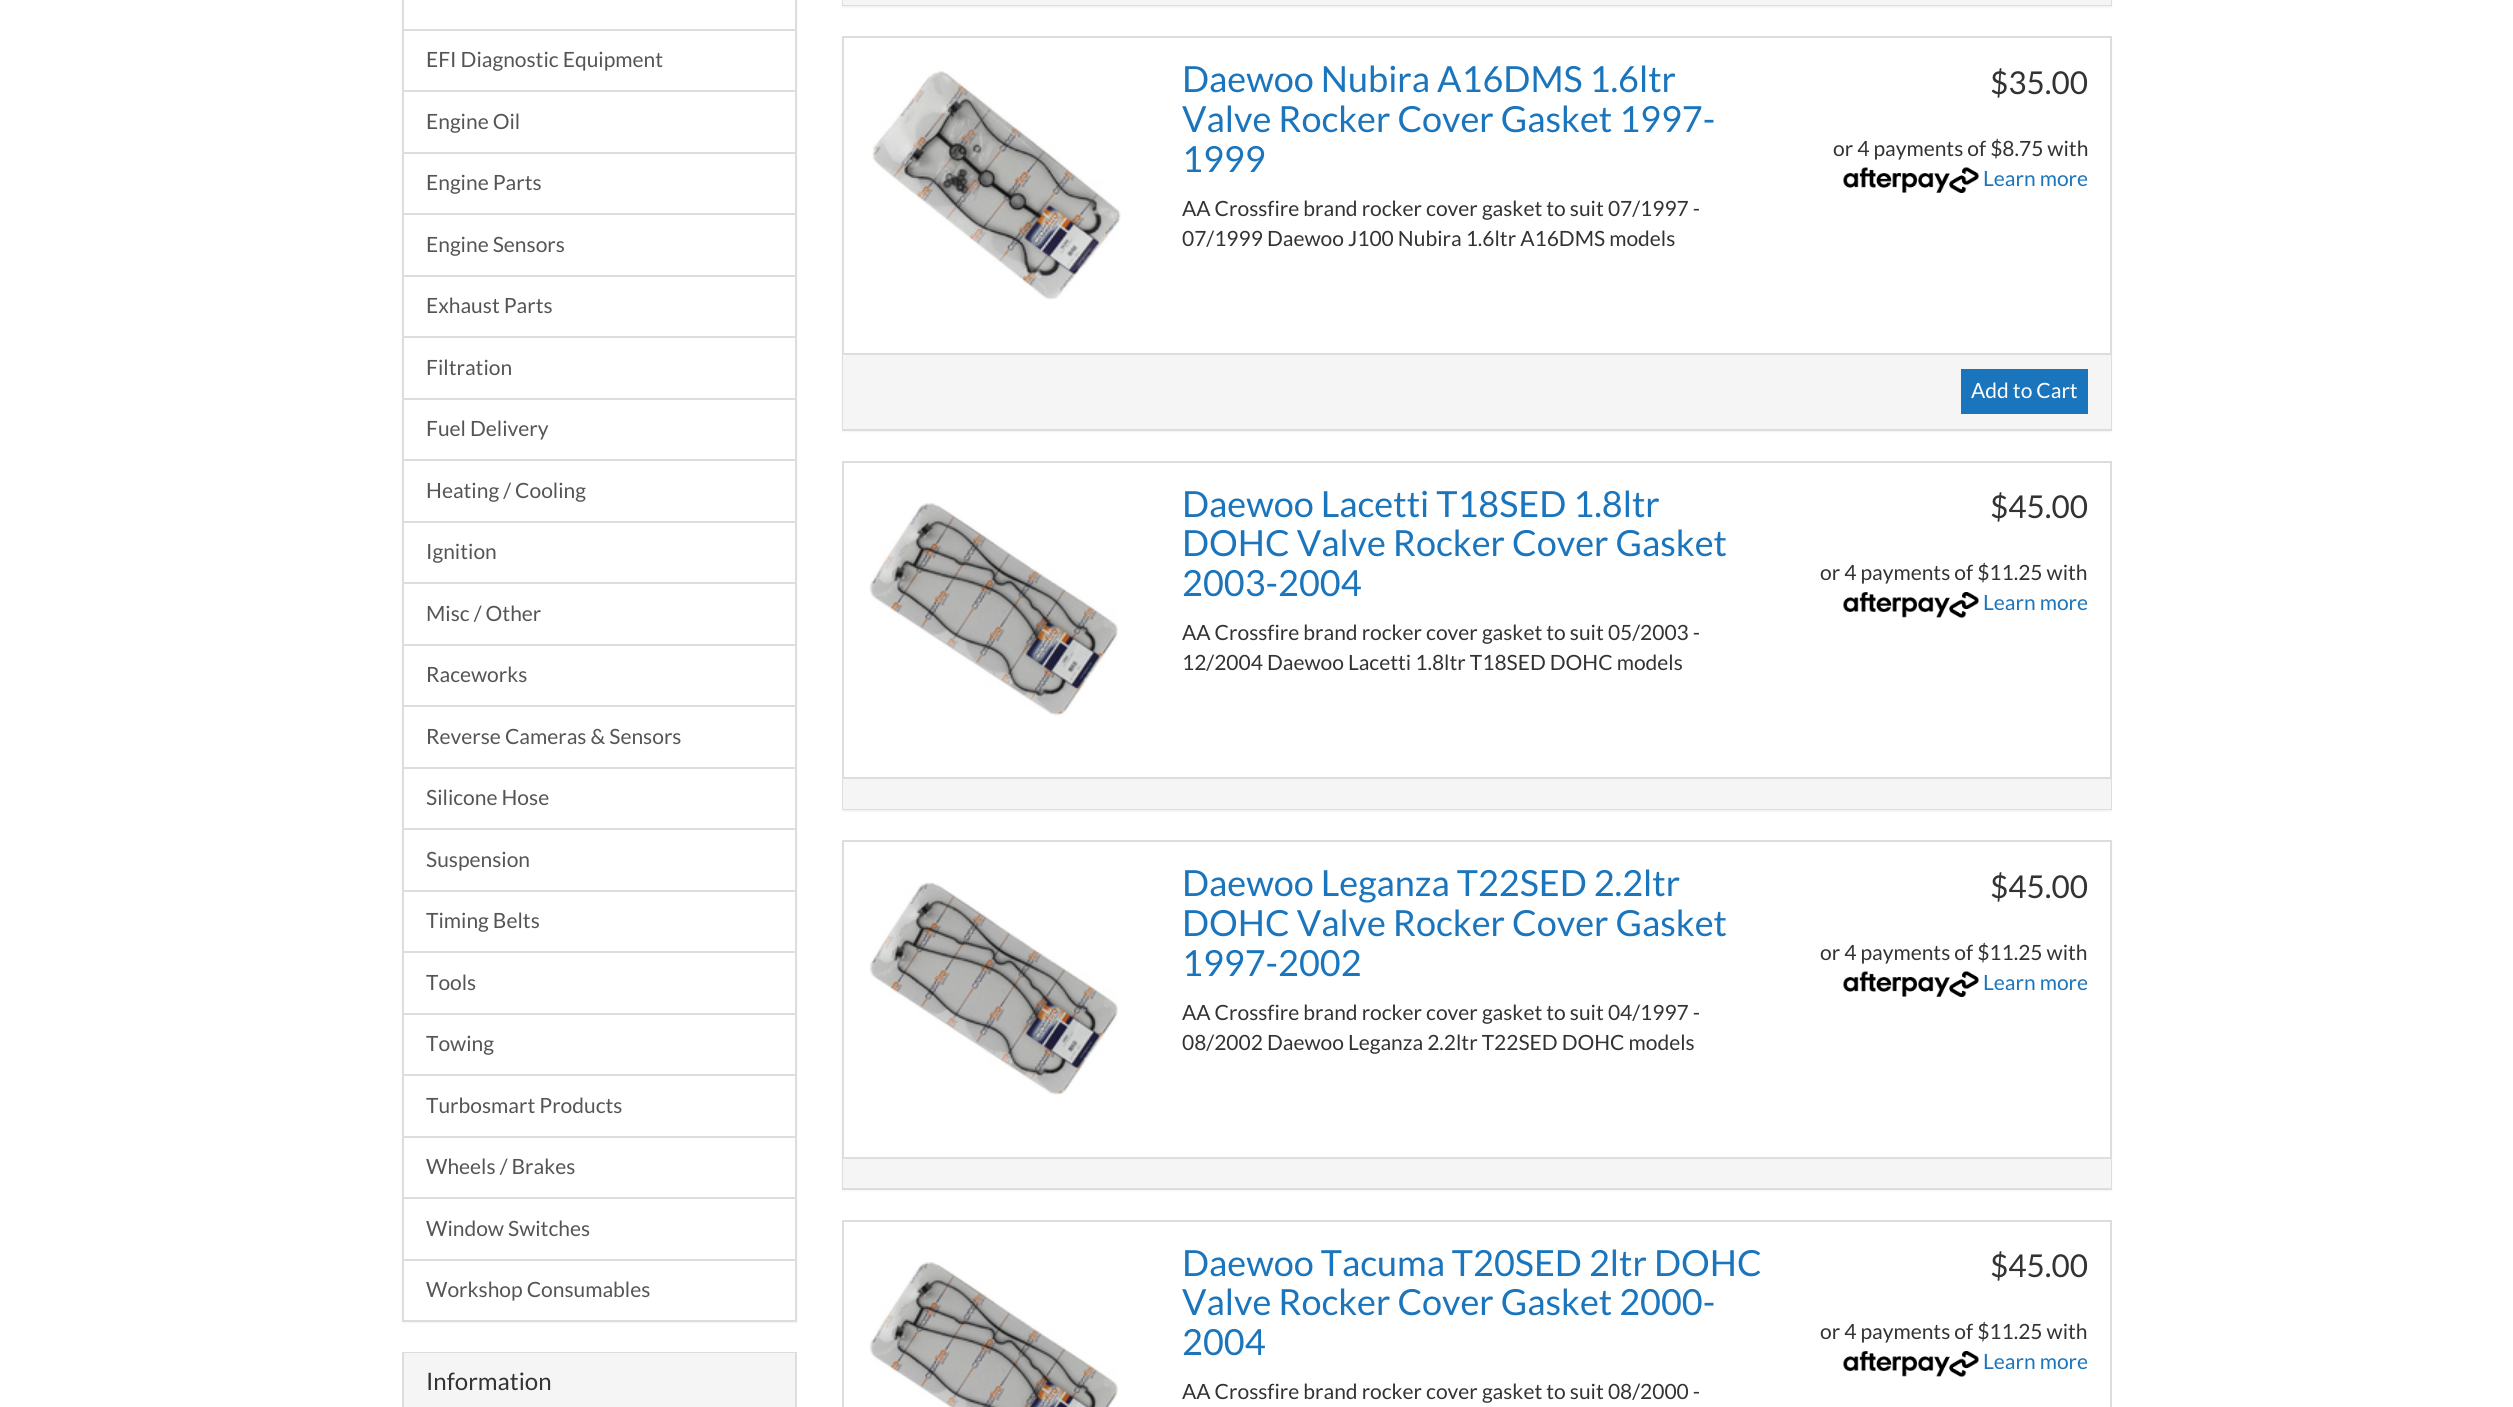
#include <cairo.h>
#include <math.h>
#include <stddef.h>

static cairo_t *c;
static void C(unsigned color){cairo_set_source_rgb(c, (color >> 16) / 255.0, (color >> 8 & 255) / 255.0, (color & 255) / 255.0);}
static void F(const char *family, double size, int italic, int bold){cairo_select_font_face(c, family, italic ? CAIRO_FONT_SLANT_ITALIC : CAIRO_FONT_SLANT_NORMAL,bold ? CAIRO_FONT_WEIGHT_BOLD : CAIRO_FONT_WEIGHT_NORMAL);cairo_set_font_size(c, size);}
static void T(double x, double y, const char *s){cairo_move_to(c, x, y);cairo_show_text(c, s);}
static void R(double x, double y, double w, double h){cairo_rectangle(c, x, y, w, h);cairo_fill(c);}
static void Q(double x, double y, double w, double h, double r){cairo_new_sub_path(c);cairo_arc(c, x + w - r, y + h - r, r, 0, M_PI / 2);cairo_arc(c, x + r, y + h - r, r, M_PI / 2, M_PI);cairo_arc(c, x + r, y + r, r, M_PI, 1.5 * M_PI);cairo_arc(c, x + w - r, y + r, r, 1.5 * M_PI, 2 * M_PI);cairo_close_path(c);}
static void S(double x, double y, double w, double h, double r, double blur, double alpha){cairo_push_group_with_content(c, CAIRO_CONTENT_ALPHA);cairo_set_operator(c, CAIRO_OPERATOR_SOURCE);for (int i = 15; i >= -15 && fmin(w, h) + blur * i / 3 > 0; i -= 2) {double e = blur * i / 6;cairo_set_source_rgba(c, 0, 0, 0, alpha * erfc((i - 1) / 8.5) / 2);Q(x - e, y - e, w + 2 * e, h + 2 * e, fmax(0, fmin(r + e + blur * .6, fmin(w, h) / 2 + e)));cairo_fill(c);}cairo_pattern_t *soft = cairo_pop_group(c);cairo_mask(c, soft);cairo_pattern_destroy(soft);}
static void I(const char *path, double x, double y, double w, double h){cairo_surface_t *image = cairo_image_surface_create_from_png(path);cairo_save(c);cairo_set_source_surface(c, image, x, y);cairo_rectangle(c, x, y, w, h);cairo_fill(c);cairo_restore(c);cairo_surface_destroy(image);}
int main(void) {
cairo_surface_t *surface = cairo_image_surface_create(CAIRO_FORMAT_RGB24, 2513, 1407);
c = cairo_create(surface);
cairo_font_options_t *options = cairo_font_options_create();
cairo_font_options_set_hint_metrics(options, CAIRO_HINT_METRICS_OFF);
cairo_font_options_set_hint_style(options, CAIRO_HINT_STYLE_NONE);
cairo_set_font_options(c, options);
cairo_set_miter_limit(c, 4);
C(0xffffff);
cairo_paint(c);
C(0x000000);
S(402,-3,395,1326,0,1,.05);
C(0xffffff);
R(404,0,391,1259);
cairo_rectangle(c,403,-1,393,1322);
C(0xdddddd);
cairo_stroke(c);
R(404,29,391,2);
F("Lato",21,0,0);
C(0x555555);
T(426,67,"EFI Diagnostic Equipment");
C(0xdddddd);
R(404,90,391,2);
C(0x555555);
T(426,129,"Engine Oil");
C(0xdddddd);
R(404,152,391,2);
R(404,213,391,2);
C(0x555555);
T(426,190,"Engine Parts");
T(426,252,"Engine Sensors");
C(0xdddddd);
R(404,275,391,2);
R(404,336,391,2);
C(0x555555);
T(426,313,"Exhaust Parts");
T(426,375,"Filtration");
C(0xdddddd);
R(404,398,391,2);
R(404,459,391,2);
C(0x555555);
T(426,436,"Fuel Delivery");
T(426,498,"Heating / Cooling");
C(0xdddddd);
R(404,521,391,2);
R(404,582,391,2);
C(0x555555);
T(426,559,"Ignition");
T(426,621,"Misc / Other");
C(0xdddddd);
R(404,644,391,2);
C(0x555555);
T(426,682,"Raceworks");
C(0xdddddd);
R(404,705,391,2);
C(0x555555);
T(426,744,"Reverse Cameras & Sensors");
C(0xdddddd);
R(404,767,391,2);
C(0x555555);
T(426,805,"Silicone Hose");
C(0xdddddd);
R(404,828,391,2);
C(0x555555);
T(426,867,"Suspension");
C(0xdddddd);
R(404,890,391,2);
R(404,951,391,2);
C(0x555555);
T(426,928,"Timing Belts");
T(426,990,"Tools");
C(0xdddddd);
R(404,1013,391,2);
R(404,1074,391,2);
C(0x555555);
T(426,1051,"Towing");
T(426,1113,"Turbosmart Products");
C(0xdddddd);
R(404,1136,391,2);
R(404,1197,391,2);
C(0x555555);
T(426,1174,"Wheels / Brakes");
T(426,1236,"Window Switches");
C(0xffffff);
R(404,1261,391,59);
C(0xdddddd);
R(404,1259,391,2);
C(0x555555);
T(426,1297,"Workshop Consumables");
cairo_rectangle(c,403,1353,393,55);
C(0xdddddd);
cairo_stroke(c);
C(0xf5f5f5);
R(404,1353,391,54);
F("Lato",24,0,0);
C(0x333333);
T(426,1390,"Information");
C(0x000000);
S(842,-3,1270,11,0,1,.05);
cairo_rectangle(c,843,-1,1268,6);
C(0xdddddd);
cairo_stroke(c);
C(0xf5f5f5);
R(843,0,1268,5);
C(0x000000);
S(842,38,1270,394,0,1,.05);
C(0xffffff);
R(844,38,1266,315);
cairo_rectangle(c,843,37,1268,393);
C(0xdddddd);
cairo_stroke(c);
I("1.png",872,71,249,229);
F("Lato",36,0,0);
C(0x1b75bc);
T(1182,92,"Daewoo Nubira A16DMS 1.6ltr");
T(1182,132,"Valve Rocker Cover Gasket 1997-");
T(1182,172,"1999");
F("Lato",21,0,0);
C(0x333333);
T(1182,216,"AA Crossfire brand rocker cover gasket to suit 07/1997 -");
T(1182,246,"07/1999 Daewoo J100 Nubira 1.6ltr A16DMS models");
F("Lato",31.5,0,0);
T(1990,94,"$35.00");
F("Lato",21,0,0);
T(1833,156,"or 4 payments of $8.75 with");
I("2.png",1843,167,136,26);
C(0x1b75bc);
T(1983,186,"Learn more");
C(0xf5f5f5);
R(843,355,1268,74);
C(0xdddddd);
R(843,353,1268,2);
C(0x1b75bc);
R(1961,369,127,45);
C(0xffffff);
T(1971,398,"Add to Cart");
cairo_save(c);
cairo_rectangle(c,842,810,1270,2);
cairo_clip(c);
C(0x000000);
S(842,462,1270,350,0,1,.05);
cairo_restore(c);
cairo_rectangle(c,843,462,1268,347);
C(0xdddddd);
cairo_stroke(c);
I("3.png",869,503,249,213);
F("Lato",36,0,0);
C(0x1b75bc);
T(1182,517,"Daewoo Lacetti T18SED 1.8ltr");
T(1182,556,"DOHC Valve Rocker Cover Gasket");
T(1182,596,"2003-2004");
F("Lato",21,0,0);
C(0x333333);
T(1182,640,"AA Crossfire brand rocker cover gasket to suit 05/2003 -");
T(1182,670,"12/2004 Daewoo Lacetti 1.8ltr T18SED DOHC models");
F("Lato",31.5,0,0);
T(1990,518,"$45.00");
F("Lato",21,0,0);
T(1820,580,"or 4 payments of $11.25 with");
I("4.png",1843,592,136,26);
C(0x1b75bc);
T(1983,610,"Learn more");
C(0xf5f5f5);
R(843,779,1268,30);
C(0xdddddd);
R(843,777,1268,2);
C(0x000000);
S(842,842,1270,349,0,1,.05);
C(0xffffff);
R(844,842,1266,315);
cairo_rectangle(c,843,841,1268,348);
C(0xdddddd);
cairo_stroke(c);
I("5.png",869,882,249,213);
F("Lato",36,0,0);
C(0x1b75bc);
T(1182,896,"Daewoo Leganza T22SED 2.2ltr");
T(1182,936,"DOHC Valve Rocker Cover Gasket");
T(1182,976,"1997-2002");
F("Lato",21,0,0);
C(0x333333);
T(1182,1020,"AA Crossfire brand rocker cover gasket to suit 04/1997 -");
T(1182,1050,"08/2002 Daewoo Leganza 2.2ltr T22SED DOHC models");
F("Lato",31.5,0,0);
T(1990,898,"$45.00");
F("Lato",21,0,0);
T(1820,960,"or 4 payments of $11.25 with");
I("2.png",1843,971,136,26);
C(0x1b75bc);
T(1983,990,"Learn more");
C(0xf5f5f5);
R(843,1159,1268,29);
C(0xdddddd);
R(843,1157,1268,2);
cairo_rectangle(c,843,1221,1268,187);
cairo_stroke(c);
I("6.png",869,1262,249,145);
F("Lato",36,0,0);
C(0x1b75bc);
T(1182,1276,"Daewoo Tacuma T20SED 2ltr DOHC");
T(1182,1315,"Valve Rocker Cover Gasket 2000-");
T(1182,1355,"2004");
F("Lato",21,0,0);
C(0x333333);
T(1182,1399,"AA Crossfire brand rocker cover gasket to suit 08/2000 -");
F("Lato",31.5,0,0);
T(1990,1277,"$45.00");
F("Lato",21,0,0);
T(1820,1339,"or 4 payments of $11.25 with");
I("4.png",1843,1351,136,26);
C(0x1b75bc);
T(1983,1369,"Learn more");
cairo_surface_write_to_png(surface, "o.png");
cairo_font_options_destroy(options);
cairo_destroy(c);
cairo_surface_destroy(surface);
return 0;
}
